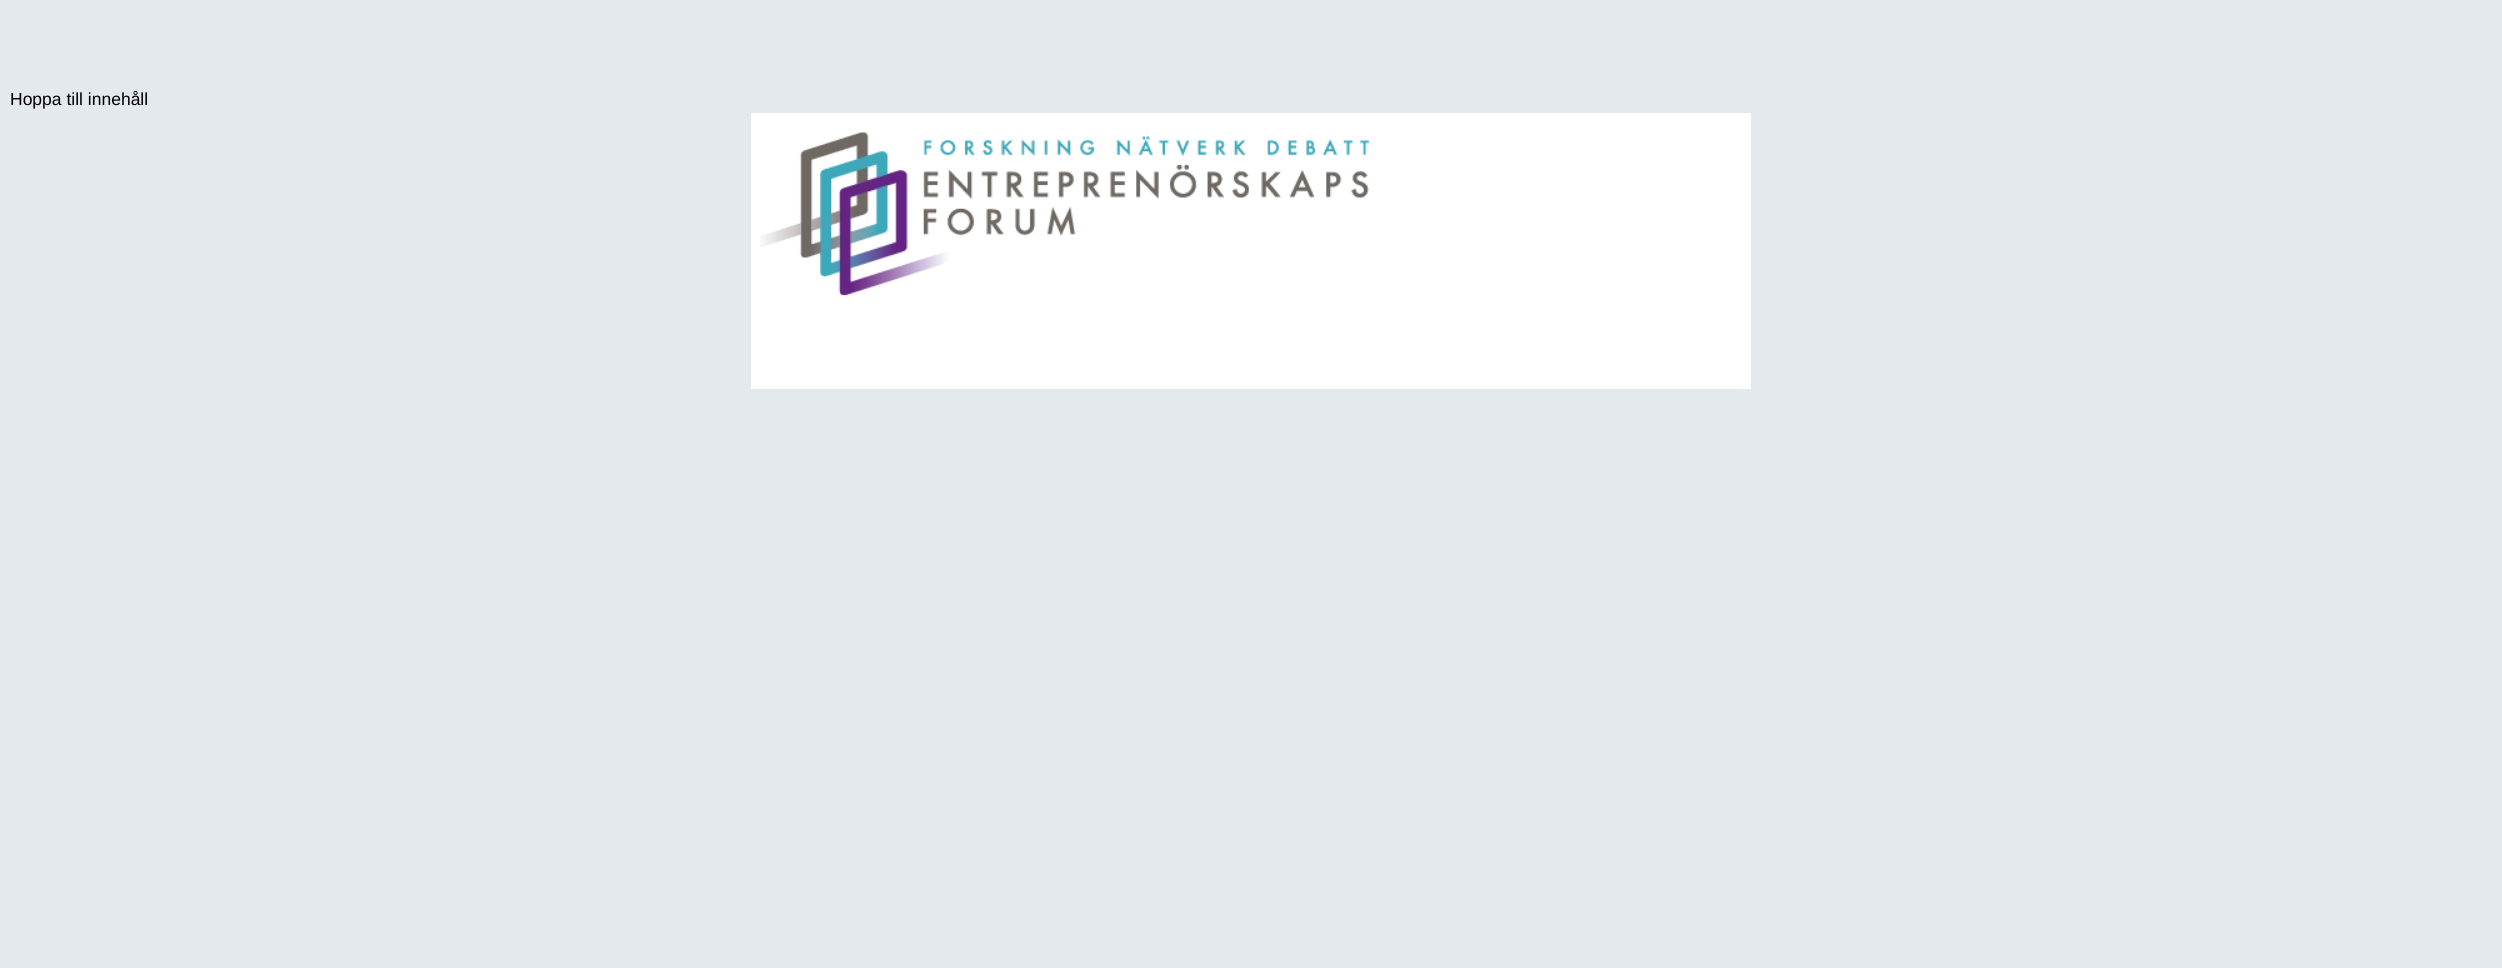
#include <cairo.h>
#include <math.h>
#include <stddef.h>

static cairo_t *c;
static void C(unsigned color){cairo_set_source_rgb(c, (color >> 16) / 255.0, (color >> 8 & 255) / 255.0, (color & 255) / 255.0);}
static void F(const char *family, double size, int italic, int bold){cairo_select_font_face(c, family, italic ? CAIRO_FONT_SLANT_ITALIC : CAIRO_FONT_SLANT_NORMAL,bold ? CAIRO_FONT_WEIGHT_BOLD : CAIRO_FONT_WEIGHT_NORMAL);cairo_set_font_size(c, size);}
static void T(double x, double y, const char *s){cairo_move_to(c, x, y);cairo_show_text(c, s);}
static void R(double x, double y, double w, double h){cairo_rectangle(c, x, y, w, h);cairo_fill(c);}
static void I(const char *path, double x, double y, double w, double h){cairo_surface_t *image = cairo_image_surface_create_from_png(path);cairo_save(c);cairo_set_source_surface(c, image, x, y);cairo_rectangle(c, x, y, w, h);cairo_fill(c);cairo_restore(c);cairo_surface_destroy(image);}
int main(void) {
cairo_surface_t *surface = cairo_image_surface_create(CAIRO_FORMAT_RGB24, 2502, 968);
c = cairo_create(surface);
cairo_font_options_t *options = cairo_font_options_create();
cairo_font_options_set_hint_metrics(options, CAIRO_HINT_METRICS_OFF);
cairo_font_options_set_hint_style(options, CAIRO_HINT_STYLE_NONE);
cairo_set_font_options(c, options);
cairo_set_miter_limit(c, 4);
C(0xe3e9ec);
cairo_paint(c);
F("Liberation Sans",17.5,0,0);
C(0x000000);
T(10,105,"Hoppa till innehåll");
C(0xffffff);
R(751,113,1000,276);
I("1.png",760,132,609,164);
cairo_surface_write_to_png(surface, "o.png");
cairo_font_options_destroy(options);
cairo_destroy(c);
cairo_surface_destroy(surface);
return 0;
}
